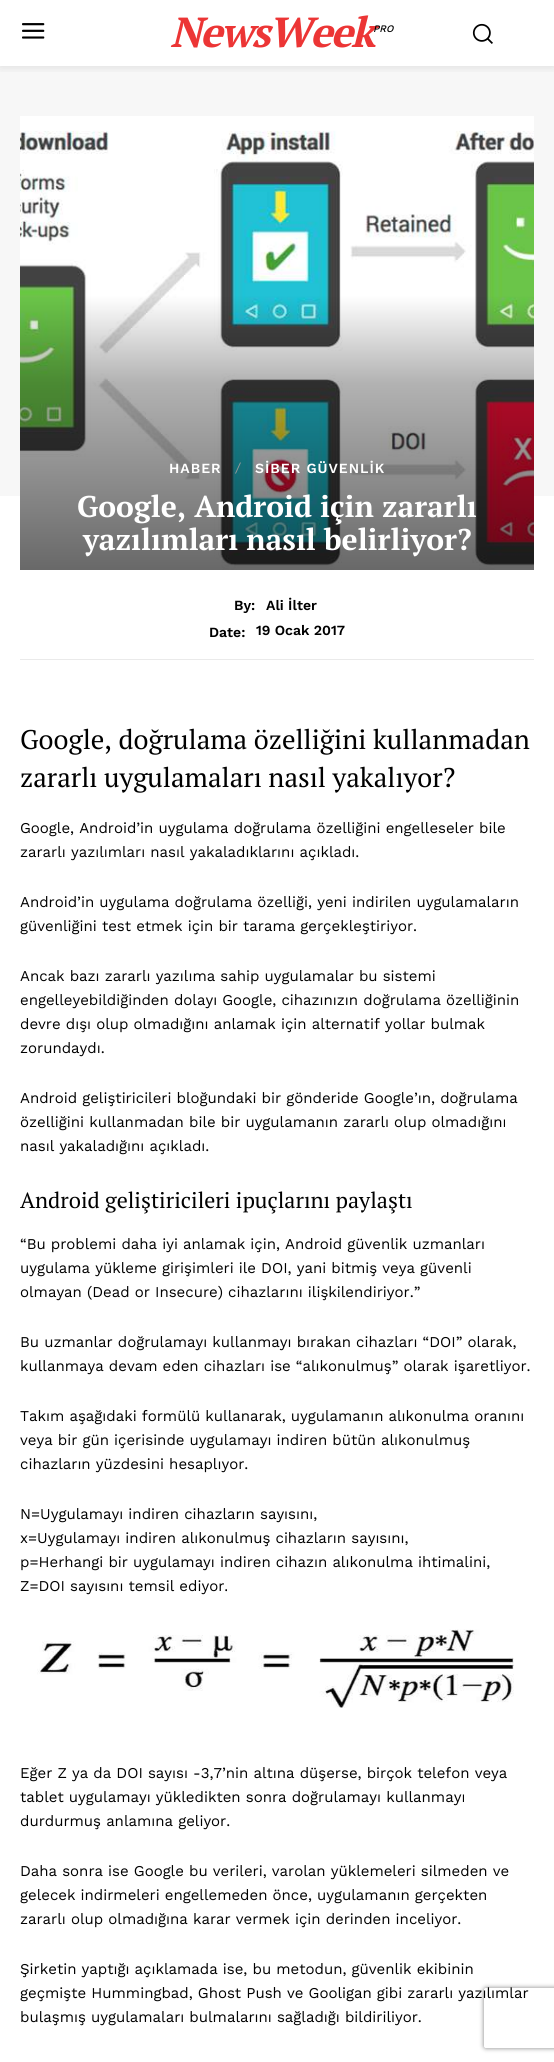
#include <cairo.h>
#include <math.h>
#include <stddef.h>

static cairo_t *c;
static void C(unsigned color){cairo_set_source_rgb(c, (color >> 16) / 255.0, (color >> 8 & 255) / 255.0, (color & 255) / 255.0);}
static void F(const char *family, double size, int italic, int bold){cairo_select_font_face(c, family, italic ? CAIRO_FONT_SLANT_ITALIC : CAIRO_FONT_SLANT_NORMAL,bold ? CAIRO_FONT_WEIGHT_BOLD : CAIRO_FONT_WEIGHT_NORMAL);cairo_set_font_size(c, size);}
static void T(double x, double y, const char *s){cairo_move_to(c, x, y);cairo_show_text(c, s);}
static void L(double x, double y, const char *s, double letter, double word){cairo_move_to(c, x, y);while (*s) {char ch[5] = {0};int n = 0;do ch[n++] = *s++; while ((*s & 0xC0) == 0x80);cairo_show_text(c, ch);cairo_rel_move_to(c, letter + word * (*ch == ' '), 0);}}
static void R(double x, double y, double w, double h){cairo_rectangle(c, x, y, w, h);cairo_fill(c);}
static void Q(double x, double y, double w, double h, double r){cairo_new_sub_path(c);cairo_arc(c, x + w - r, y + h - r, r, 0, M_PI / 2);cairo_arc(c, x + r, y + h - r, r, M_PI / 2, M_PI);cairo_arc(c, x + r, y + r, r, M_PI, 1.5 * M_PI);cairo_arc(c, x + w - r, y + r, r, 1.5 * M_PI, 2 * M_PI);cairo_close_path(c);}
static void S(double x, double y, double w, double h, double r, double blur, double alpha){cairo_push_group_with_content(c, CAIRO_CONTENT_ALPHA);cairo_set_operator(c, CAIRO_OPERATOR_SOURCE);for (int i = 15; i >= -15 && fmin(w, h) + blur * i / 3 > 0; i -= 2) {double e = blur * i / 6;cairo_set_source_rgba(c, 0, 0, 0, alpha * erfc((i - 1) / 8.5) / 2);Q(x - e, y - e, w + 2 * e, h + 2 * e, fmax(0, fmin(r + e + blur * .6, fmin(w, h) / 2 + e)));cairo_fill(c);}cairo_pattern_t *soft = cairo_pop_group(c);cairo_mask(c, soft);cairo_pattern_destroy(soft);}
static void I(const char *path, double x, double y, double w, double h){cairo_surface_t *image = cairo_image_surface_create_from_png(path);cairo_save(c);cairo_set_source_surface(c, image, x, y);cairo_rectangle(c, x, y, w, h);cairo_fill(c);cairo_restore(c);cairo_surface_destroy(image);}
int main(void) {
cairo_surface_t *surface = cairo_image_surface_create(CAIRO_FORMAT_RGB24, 554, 2062);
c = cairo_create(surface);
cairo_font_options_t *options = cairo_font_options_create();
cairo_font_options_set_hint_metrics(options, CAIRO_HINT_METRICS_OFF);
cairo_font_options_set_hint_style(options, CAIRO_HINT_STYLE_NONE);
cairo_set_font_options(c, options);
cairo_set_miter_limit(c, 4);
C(0xffffff);
cairo_paint(c);
I("1.png",22,23,23,16);
I("2.png",472,23,21,21);
C(0xf7f7f7);
R(0,66,554,430);
cairo_save(c);
cairo_rectangle(c,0,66,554,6);
cairo_clip(c);
C(0x000000);
S(0,2,554,66,0,5,.09);
cairo_restore(c);
F("PT Serif",42,1,1);
C(0xec3535);
L(170,47,"NewsWeek",-2,0);
F("Work Sans Medium",10,1,0);
C(0x000000);
T(373,32,"PRO");
I("3.png",20,116,514,454);
F("Work Sans SemiBold",14,0,0);
C(0xffffff);
L(169,473,"HABER",1,0);
C(0x999999);
cairo_new_path(c);
cairo_move_to(c,240,462.5);
cairo_line_to(c,235,473.5);
cairo_line_to(c,236,473.5);
cairo_line_to(c,241,462.5);
cairo_close_path(c);
cairo_fill(c);
C(0xffffff);
L(255,473,"SİBER GÜVENLİK",1,0);
F("PT Serif",30,0,1);
T(77,517,"Google, Android için zararlı");
T(83,550,"yazılımları nasıl belirliyor?");
F("Work Sans SemiBold",14,0,0);
C(0x000000);
T(234,610,"By:");
T(266,610,"Ali İlter");
T(209,637,"Date:");
T(256,635,"19 Ocak 2017");
C(0xeaeaea);
R(20,659,514,1);
F("PT Serif",27,0,0);
C(0x000000);
T(20,749,"Google, doğrulama özelliğini kullanmadan");
T(20,787,"zararlı uygulamaları nasıl yakalıyor?");
F("Work Sans",15,0,0);
T(20,833,"Google, Android’in uygulama doğrulama özelliğini engelleseler bile");
T(20,857,"zararlı yazılımları nasıl yakaladıklarını açıkladı.");
T(20,907,"Android’in uygulama doğrulama özelliği, yeni indirilen uygulamaların");
T(20,931,"güvenliğini test etmek için bir tarama gerçekleştiriyor.");
T(20,981,"Ancak bazı zararlı yazılıma sahip uygulamalar bu sistemi");
T(20,1005,"engelleyebildiğinden dolayı Google, cihazınızın doğrulama özelliğinin");
T(20,1029,"devre dışı olup olmadığını anlamak için alternatif yollar bulmak");
T(20,1053,"zorundaydı.");
T(20,1103,"Android geliştiricileri bloğundaki bir gönderide Google’ın, doğrulama");
T(20,1127,"özelliğini kullanmadan bile bir uygulamanın zararlı olup olmadığını");
T(20,1151,"nasıl yakaladığını açıkladı.");
F("PT Serif",22,0,0);
T(20,1208,"Android geliştiricileri ipuçlarını paylaştı");
F("Work Sans",15,0,0);
T(20,1249,"“Bu problemi daha iyi anlamak için, Android güvenlik uzmanları");
T(20,1273,"uygulama yükleme girişimleri ile DOI, yani bitmiş veya güvenli");
T(20,1297,"olmayan (Dead or Insecure) cihazlarını ilişkilendiriyor.”");
T(20,1347,"Bu uzmanlar doğrulamayı kullanmayı bırakan cihazları “DOI” olarak,");
T(20,1371,"kullanmaya devam eden cihazları ise “alıkonulmuş” olarak işaretliyor.");
T(20,1421,"Takım aşağıdaki formülü kullanarak, uygulamanın alıkonulma oranını");
T(20,1445,"veya bir gün içerisinde uygulamayı indiren bütün alıkonulmuş");
T(20,1469,"cihazların yüzdesini hesaplıyor.");
T(20,1519,"N=Uygulamayı indiren cihazların sayısını,");
T(20,1543,"x=Uygulamayı indiren alıkonulmuş cihazların sayısını,");
T(20,1567,"p=Herhangi bir uygulamayı indiren cihazın alıkonulma ihtimalini,");
T(20,1591,"Z=DOI sayısını temsil ediyor.");
I("4.png",37,1629,477,79);
T(20,1778,"Eğer Z ya da DOI sayısı -3,7’nin altına düşerse, birçok telefon veya");
T(20,1802,"tablet uygulamayı yükledikten sonra doğrulamayı kullanmayı");
T(20,1826,"durdurmuş anlamına geliyor.");
T(20,1876,"Daha sonra ise Google bu verileri, varolan yüklemeleri silmeden ve");
T(20,1900,"gelecek indirmeleri engellemeden önce, uygulamanın gerçekten");
T(20,1924,"zararlı olup olmadığına karar vermek için derinden inceliyor.");
T(20,1974,"Şirketin yaptığı açıklamada ise, bu metodun, güvenlik ekibinin");
T(20,1998,"geçmişte Hummingbad, Ghost Push ve Gooligan gibi zararlı yazılımlar");
T(20,2022,"bulaşmış uygulamaları bulmalarını sağladığı bildiriliyor.");
cairo_save(c);
cairo_set_fill_rule(c,CAIRO_FILL_RULE_EVEN_ODD);
cairo_new_path(c);
cairo_move_to(c,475,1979);
cairo_line_to(c,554,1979);
cairo_line_to(c,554,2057);
cairo_line_to(c,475,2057);
cairo_close_path(c);
cairo_move_to(c,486,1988);
cairo_line_to(c,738,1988);
cairo_curve_to(c,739,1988,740,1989,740,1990);
cairo_line_to(c,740,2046);
cairo_curve_to(c,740,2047,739,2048,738,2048);
cairo_line_to(c,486,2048);
cairo_curve_to(c,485,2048,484,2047,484,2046);
cairo_line_to(c,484,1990);
cairo_curve_to(c,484,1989,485,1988,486,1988);
cairo_close_path(c);
cairo_clip(c);
C(0x808080);
S(484,1988,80,60,2,2.5,1);
cairo_restore(c);
cairo_surface_write_to_png(surface, "o.png");
cairo_font_options_destroy(options);
cairo_destroy(c);
cairo_surface_destroy(surface);
return 0;
}
